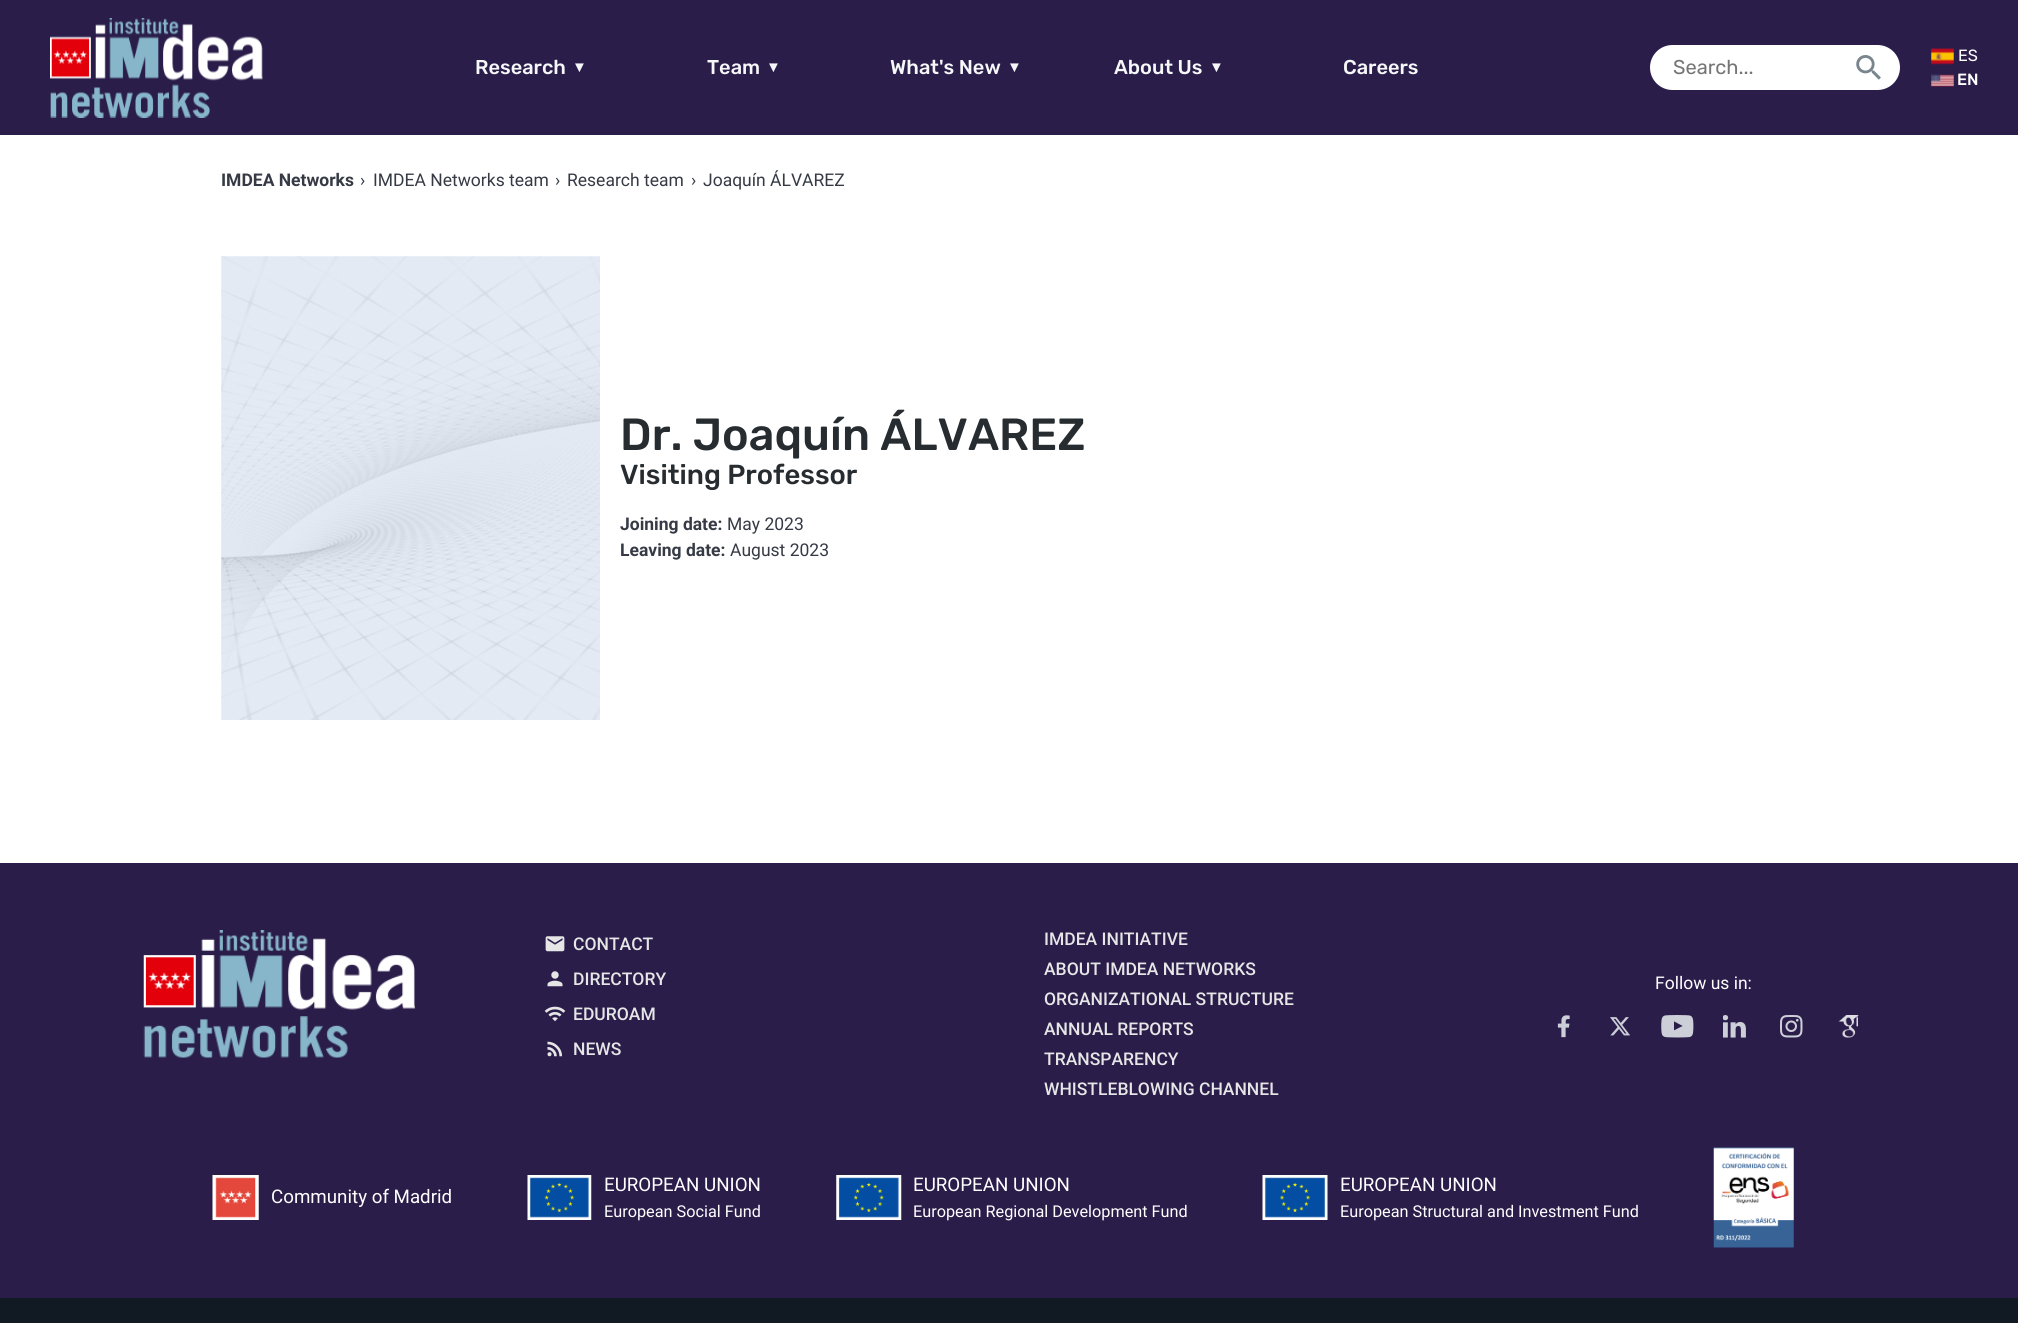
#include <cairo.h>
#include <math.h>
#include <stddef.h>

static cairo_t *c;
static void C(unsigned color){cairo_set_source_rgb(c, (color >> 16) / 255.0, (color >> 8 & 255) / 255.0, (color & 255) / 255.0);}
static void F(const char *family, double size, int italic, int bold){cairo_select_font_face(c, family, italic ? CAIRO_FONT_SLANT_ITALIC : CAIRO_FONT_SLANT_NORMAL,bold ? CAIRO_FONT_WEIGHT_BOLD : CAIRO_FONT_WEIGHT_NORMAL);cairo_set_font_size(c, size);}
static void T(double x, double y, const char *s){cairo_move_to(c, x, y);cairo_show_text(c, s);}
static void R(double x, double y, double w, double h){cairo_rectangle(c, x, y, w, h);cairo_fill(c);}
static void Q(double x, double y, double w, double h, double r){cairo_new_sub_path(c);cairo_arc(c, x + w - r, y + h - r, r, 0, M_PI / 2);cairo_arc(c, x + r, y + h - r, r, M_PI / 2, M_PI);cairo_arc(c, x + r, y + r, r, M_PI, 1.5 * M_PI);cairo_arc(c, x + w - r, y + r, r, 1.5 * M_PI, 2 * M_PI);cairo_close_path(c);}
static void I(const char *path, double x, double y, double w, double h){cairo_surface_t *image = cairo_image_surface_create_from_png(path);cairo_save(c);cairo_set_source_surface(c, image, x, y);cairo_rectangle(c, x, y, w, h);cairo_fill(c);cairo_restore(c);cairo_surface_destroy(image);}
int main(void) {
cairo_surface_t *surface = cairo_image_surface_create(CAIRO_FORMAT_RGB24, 2018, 1323);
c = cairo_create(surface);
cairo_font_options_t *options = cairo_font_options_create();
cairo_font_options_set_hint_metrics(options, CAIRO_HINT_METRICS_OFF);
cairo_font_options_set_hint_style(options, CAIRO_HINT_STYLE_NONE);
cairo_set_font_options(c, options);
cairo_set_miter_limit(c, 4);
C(0xffffff);
cairo_paint(c);
C(0x2a1d4a);
R(0,0,2018,135);
I("1.png",50,18,213,100);
F("Rubik Medium",20,0,0);
C(0xf6f7f8);
T(475,74,"Research");
F("Liberation Serif",15,0,0);
T(572,72,"▼");
F("Rubik Medium",20,0,0);
T(707,74,"Team");
F("Liberation Serif",15,0,0);
T(766,72,"▼");
F("Rubik Medium",20,0,0);
T(890,74,"What's New");
F("Liberation Serif",15,0,0);
T(1007,72,"▼");
F("Rubik Medium",20,0,0);
T(1114,74,"About Us");
F("Liberation Serif",15,0,0);
T(1209,72,"▼");
F("Rubik Medium",20,0,0);
T(1343,74,"Careers");
C(0xffffff);
Q(1650,45,250,45,22.5);
cairo_fill(c);
F("Rubik",20,0,0);
C(0x757575);
T(1673,74,"Search...");
I("2.png",1856,55,25,25);
I("3.png",1931,48,23,17);
F("Rubik",16.25,0,0);
C(0xffffff);
T(1958,61,"ES");
I("4.png",1931,74,23,13);
F("Rubik Medium",16.25,0,0);
T(1957,85,"EN");
F("Roboto",17.5,0,1);
C(0x353a45);
T(221,186,"IMDEA Networks");
F("Roboto",17.5,0,0);
T(360,186,"›");
T(373,186,"IMDEA Networks team");
T(555,186,"›");
T(567,186,"Research team");
T(691,186,"›");
T(703,186,"Joaquín ÁLVAREZ");
I("5.png",221,256,379,464);
F("Rubik Medium",45,0,0);
C(0x262c30);
T(620,450,"Dr. Joaquín ÁLVAREZ");
F("Rubik Medium",27.5,0,0);
T(620,484,"Visiting Professor");
F("Roboto",17.5,0,1);
C(0x353a45);
T(620,530,"Joining date:");
F("Roboto",17.5,0,0);
T(727,530,"May 2023");
F("Roboto",17.5,0,1);
T(620,556,"Leaving date:");
F("Roboto",17.5,0,0);
T(730,556,"August 2023");
C(0x2a1d4a);
R(0,863,2018,435);
I("6.png",143,930,272,128);
I("7.png",545,936,20,16);
F("Roboto Medium",17.5,0,0);
C(0xe6e6e6);
T(573,950,"CONTACT");
I("8.png",547,971,16,16);
T(573,985,"DIRECTORY");
I("9.png",544,1006,22,16);
T(573,1020,"EDUROAM");
I("10.png",547,1041,15,16);
T(573,1055,"NEWS");
T(1044,945,"IMDEA INITIATIVE");
T(1044,975,"ABOUT IMDEA NETWORKS");
T(1044,1005,"ORGANIZATIONAL STRUCTURE");
T(1044,1035,"ANNUAL REPORTS");
T(1044,1065,"TRANSPARENCY");
T(1044,1095,"WHISTLEBLOWING CHANNEL");
F("Roboto",17.5,0,0);
C(0xffffff);
T(1655,989,"Follow us in:");
I("11.png",1557,1015,13,23);
I("12.png",1610,1017,20,19);
I("13.png",1661,1015,33,23);
I("14.png",1723,1015,23,23);
I("15.png",1780,1015,23,23);
I("16.png",1838,1015,21,23);
I("17.png",212,1175,47,45);
F("Roboto",18.75,0,0);
T(271,1203,"Community of Madrid");
I("18.png",527,1175,65,45);
T(604,1191,"EUROPEAN UNION");
F("Roboto",16.25,0,0);
T(604,1217,"European Social Fund");
I("19.png",836,1175,66,45);
F("Roboto",18.75,0,0);
T(913,1191,"EUROPEAN UNION");
F("Roboto",16.25,0,0);
T(913,1217,"European Regional Development Fund");
I("20.png",1262,1175,66,45);
F("Roboto",18.75,0,0);
T(1340,1191,"EUROPEAN UNION");
F("Roboto",16.25,0,0);
T(1340,1217,"European Structural and Investment Fund");
I("21.png",1713,1147,81,101);
C(0x111a23);
R(0,1298,2018,25);
cairo_surface_write_to_png(surface, "o.png");
cairo_font_options_destroy(options);
cairo_destroy(c);
cairo_surface_destroy(surface);
return 0;
}
